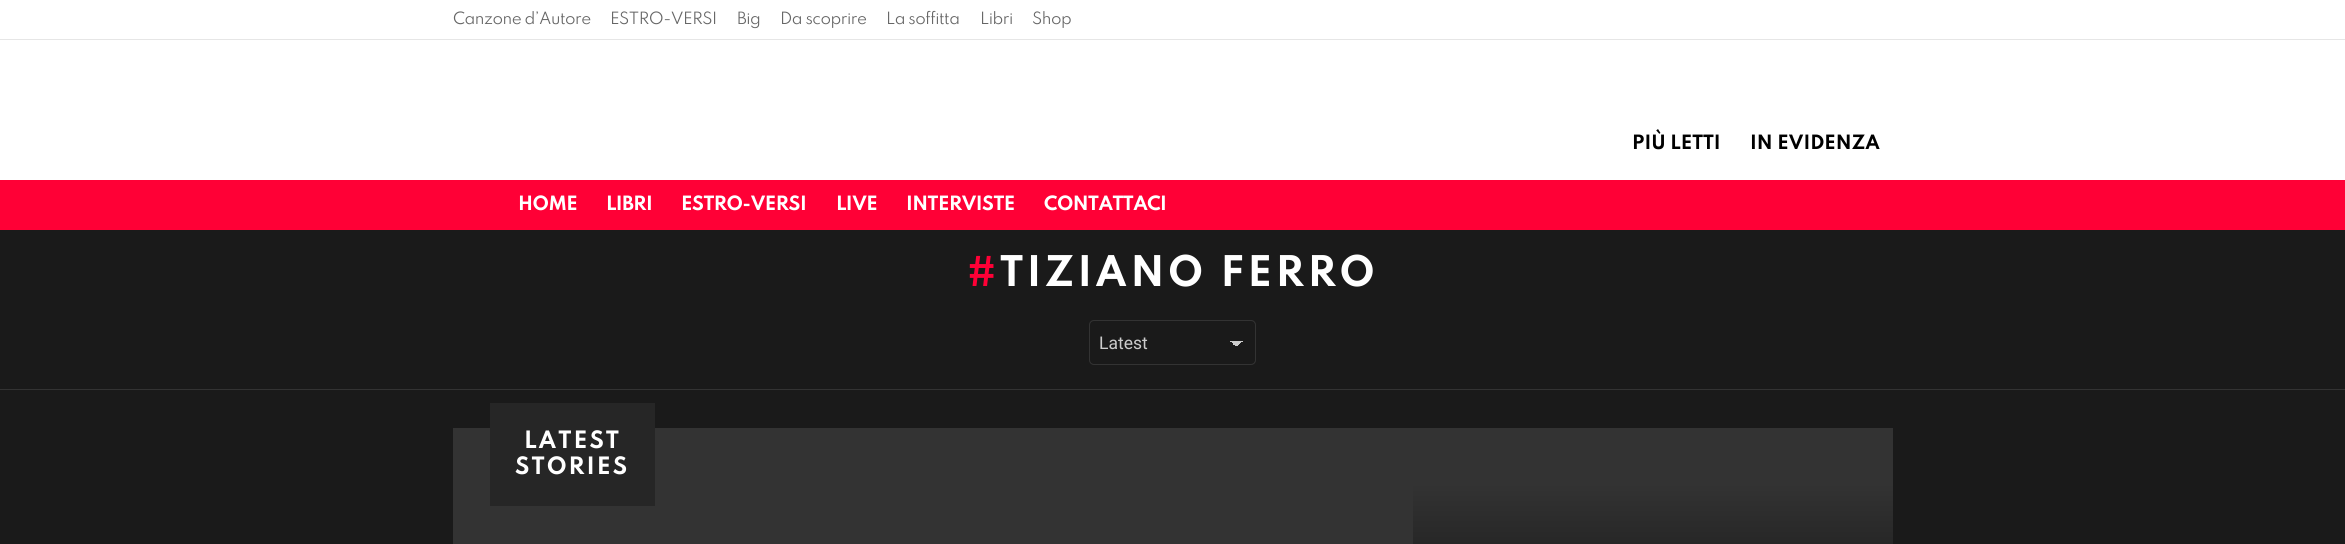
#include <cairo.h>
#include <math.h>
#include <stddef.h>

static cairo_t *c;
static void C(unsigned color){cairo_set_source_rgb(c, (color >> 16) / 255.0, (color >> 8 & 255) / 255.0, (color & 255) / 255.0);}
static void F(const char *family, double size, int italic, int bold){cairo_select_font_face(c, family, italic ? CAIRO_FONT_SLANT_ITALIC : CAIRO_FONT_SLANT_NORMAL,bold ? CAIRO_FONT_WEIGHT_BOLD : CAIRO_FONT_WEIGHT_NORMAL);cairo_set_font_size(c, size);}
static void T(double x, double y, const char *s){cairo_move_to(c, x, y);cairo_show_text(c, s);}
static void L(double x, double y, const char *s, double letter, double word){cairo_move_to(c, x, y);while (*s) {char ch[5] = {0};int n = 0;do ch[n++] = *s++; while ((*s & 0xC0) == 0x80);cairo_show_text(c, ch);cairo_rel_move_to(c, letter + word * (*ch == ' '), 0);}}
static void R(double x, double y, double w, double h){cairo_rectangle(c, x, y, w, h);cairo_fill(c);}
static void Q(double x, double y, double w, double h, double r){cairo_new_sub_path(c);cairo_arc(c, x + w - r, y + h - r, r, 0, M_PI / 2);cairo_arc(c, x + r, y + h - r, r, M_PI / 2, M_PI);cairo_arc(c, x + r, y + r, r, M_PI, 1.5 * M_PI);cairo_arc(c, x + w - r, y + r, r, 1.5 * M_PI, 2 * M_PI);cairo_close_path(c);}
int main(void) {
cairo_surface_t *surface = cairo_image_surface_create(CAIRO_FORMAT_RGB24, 2345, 544);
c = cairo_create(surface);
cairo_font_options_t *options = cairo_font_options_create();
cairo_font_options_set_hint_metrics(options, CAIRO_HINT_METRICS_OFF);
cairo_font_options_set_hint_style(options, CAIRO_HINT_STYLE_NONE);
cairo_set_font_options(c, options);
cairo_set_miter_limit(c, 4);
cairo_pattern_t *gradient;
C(0x1a1a1a);
cairo_paint(c);
C(0xffffff);
R(0,0,2345,39);
C(0xe6e6e6);
R(0,39,2345,1);
F("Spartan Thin",15,0,0);
C(0x666666);
L(453,24,"Canzone d’Autore",-.5,0);
L(610,24,"ESTRO-VERSI",-.5,0);
L(737,24,"Big",-.5,0);
L(780,24,"Da scoprire",-.5,0);
L(886,24,"La soffitta",-.5,0);
L(980,24,"Libri",-.5,0);
L(1032,24,"Shop",-.5,0);
C(0xffffff);
R(0,40,2345,140);
F("Spartan Thin",17.5,0,1);
C(0x000000);
T(1632,149,"PIÙ LETTI");
T(1750,149,"IN EVIDENZA");
C(0xff0036);
R(0,180,2345,50);
C(0xffffff);
L(518,210,"HOME",-.5,0);
L(606,210,"LIBRI",-.5,0);
L(681,210,"ESTRO-VERSI",-.5,0);
L(836,210,"LIVE",-.5,0);
L(906,210,"INTERVISTE",-.5,0);
L(1044,210,"CONTATTACI",-.5,0);
F("Spartan Thin",37.5,0,1);
C(0xff0036);
L(967,286,"#",3.6,0);
C(0xffffff);
L(1000,286,"TIZIANO FERRO",3.6,0);
gradient = cairo_pattern_create_linear(1237,341,1242,347);
cairo_pattern_add_color_stop_rgba(gradient,.5,0.8,0.8,0.8,1);
cairo_pattern_add_color_stop_rgba(gradient,.5,0.102,0.102,0.102,1);
cairo_set_source(c,gradient);
cairo_pattern_destroy(gradient);
R(1236,341,7,5);
gradient = cairo_pattern_create_linear(1230,347,1236,341);
cairo_pattern_add_color_stop_rgba(gradient,.5,0.102,0.102,0.102,1);
cairo_pattern_add_color_stop_rgba(gradient,.5,0.8,0.8,0.8,1);
cairo_set_source(c,gradient);
cairo_pattern_destroy(gradient);
R(1230,341,6,5);
Q(1089.5,320.5,166,44,4.5);
C(0x333333);
cairo_set_line_width(c,1);
cairo_stroke(c);
F("Roboto",17.5,0,0);
C(0xcccccc);
T(1099,349,"Latest");
C(0x333333);
R(0,389,2345,1);
R(453,428,960,116);
R(1413,428,480,55);
gradient = cairo_pattern_create_linear(1653,483,1653,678);
cairo_pattern_add_color_stop_rgba(gradient,0,0.2,0.2,0.2,1);
cairo_pattern_add_color_stop_rgba(gradient,1,0.051,0.051,0.051,1);
cairo_set_source(c,gradient);
cairo_pattern_destroy(gradient);
R(1413,483,480,61);
C(0x262626);
R(490,403,165,103);
F("Spartan Thin",21.25,0,1);
C(0xffffff);
L(524,448,"LATEST",2,0);
L(515,474,"STORIES",2,0);
cairo_surface_write_to_png(surface, "o.png");
cairo_font_options_destroy(options);
cairo_destroy(c);
cairo_surface_destroy(surface);
return 0;
}
